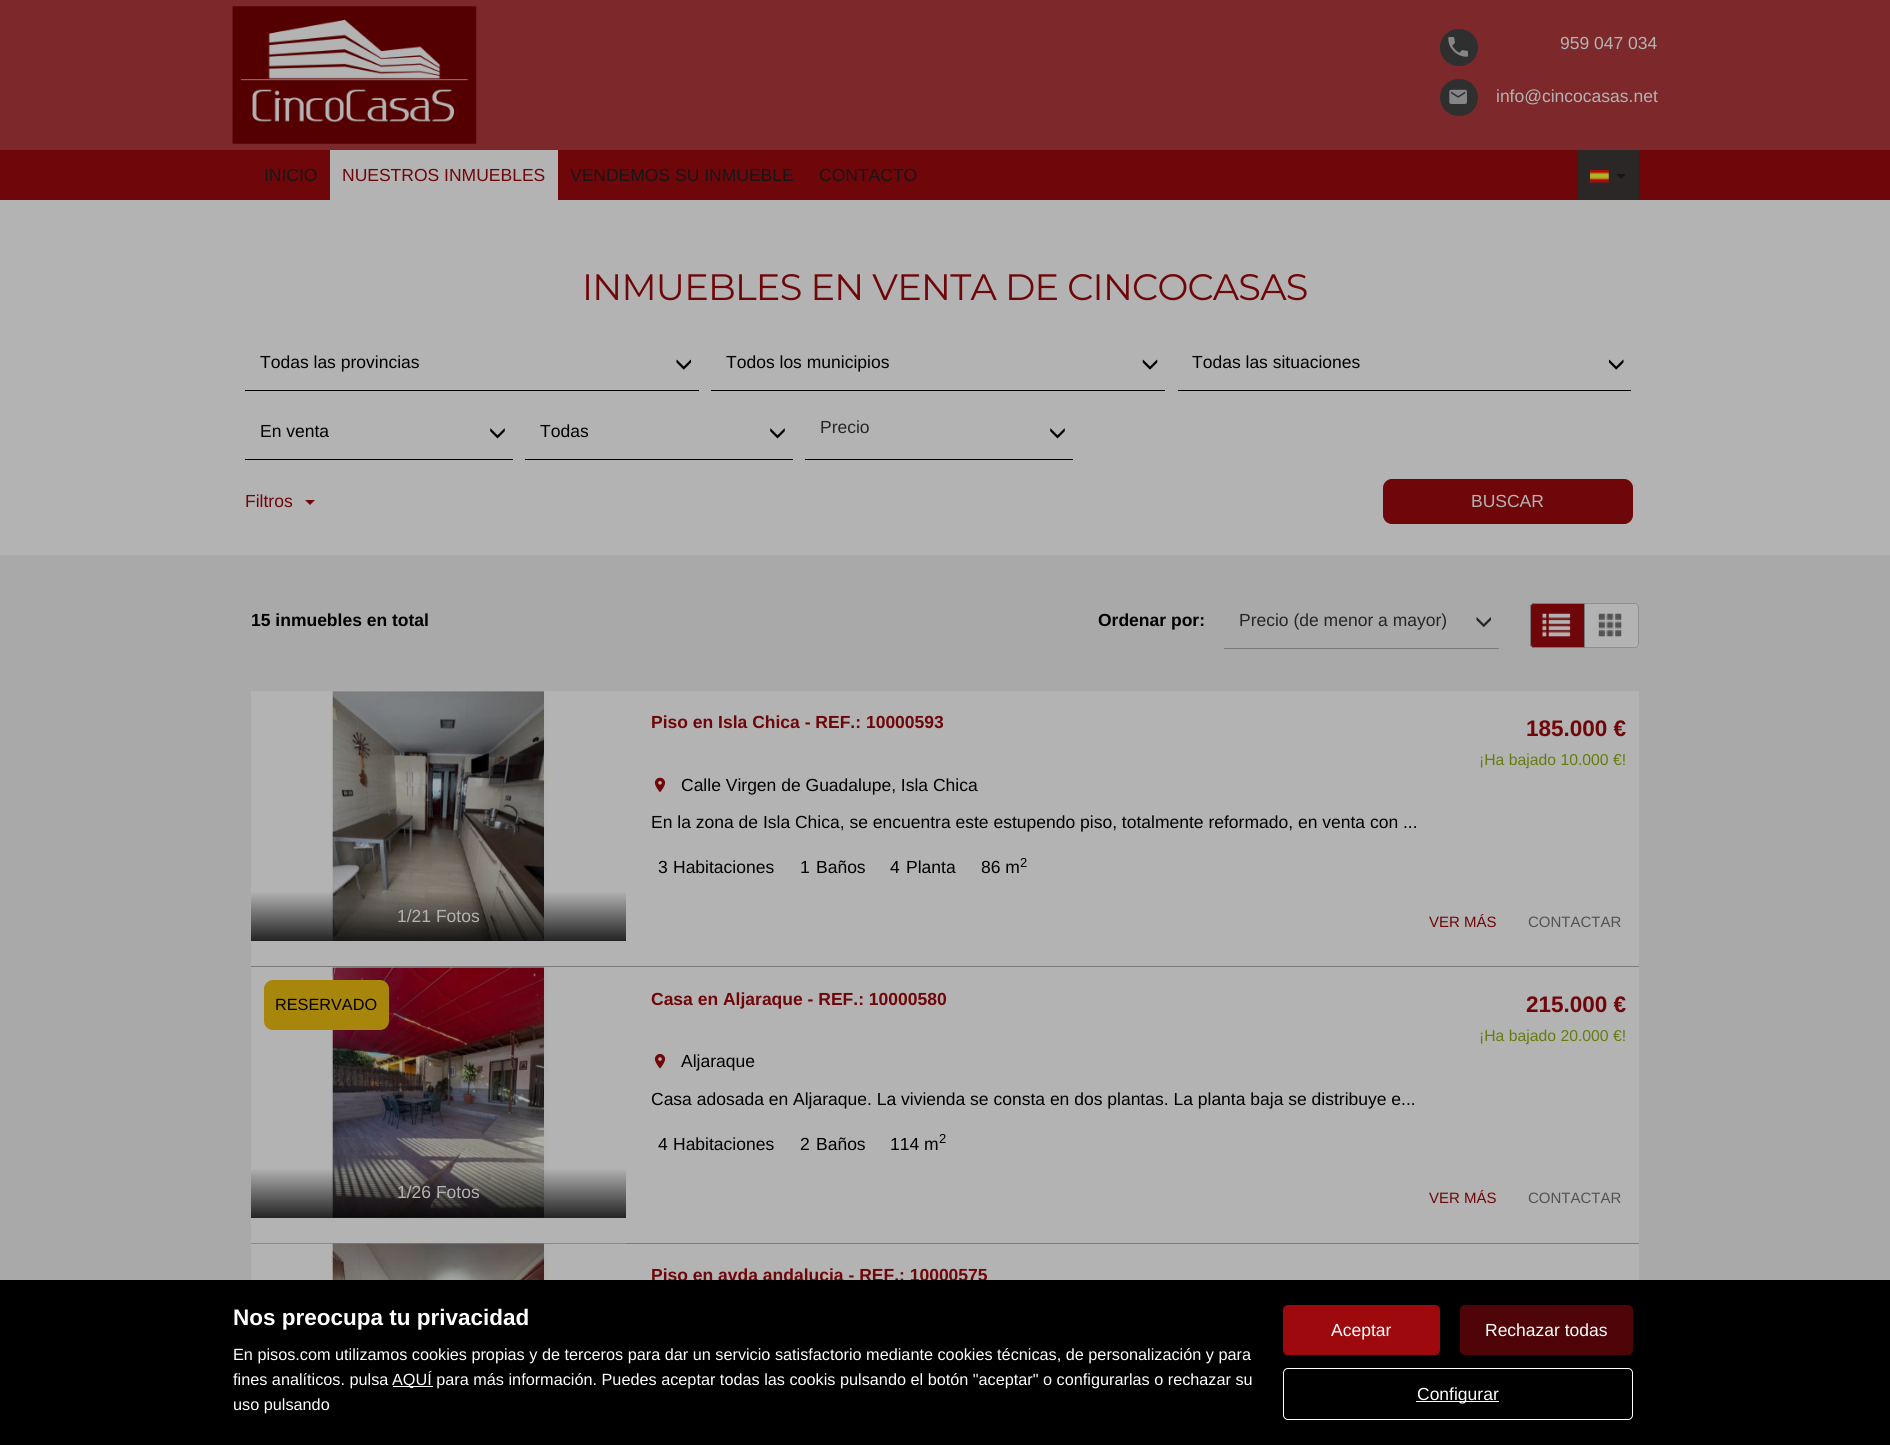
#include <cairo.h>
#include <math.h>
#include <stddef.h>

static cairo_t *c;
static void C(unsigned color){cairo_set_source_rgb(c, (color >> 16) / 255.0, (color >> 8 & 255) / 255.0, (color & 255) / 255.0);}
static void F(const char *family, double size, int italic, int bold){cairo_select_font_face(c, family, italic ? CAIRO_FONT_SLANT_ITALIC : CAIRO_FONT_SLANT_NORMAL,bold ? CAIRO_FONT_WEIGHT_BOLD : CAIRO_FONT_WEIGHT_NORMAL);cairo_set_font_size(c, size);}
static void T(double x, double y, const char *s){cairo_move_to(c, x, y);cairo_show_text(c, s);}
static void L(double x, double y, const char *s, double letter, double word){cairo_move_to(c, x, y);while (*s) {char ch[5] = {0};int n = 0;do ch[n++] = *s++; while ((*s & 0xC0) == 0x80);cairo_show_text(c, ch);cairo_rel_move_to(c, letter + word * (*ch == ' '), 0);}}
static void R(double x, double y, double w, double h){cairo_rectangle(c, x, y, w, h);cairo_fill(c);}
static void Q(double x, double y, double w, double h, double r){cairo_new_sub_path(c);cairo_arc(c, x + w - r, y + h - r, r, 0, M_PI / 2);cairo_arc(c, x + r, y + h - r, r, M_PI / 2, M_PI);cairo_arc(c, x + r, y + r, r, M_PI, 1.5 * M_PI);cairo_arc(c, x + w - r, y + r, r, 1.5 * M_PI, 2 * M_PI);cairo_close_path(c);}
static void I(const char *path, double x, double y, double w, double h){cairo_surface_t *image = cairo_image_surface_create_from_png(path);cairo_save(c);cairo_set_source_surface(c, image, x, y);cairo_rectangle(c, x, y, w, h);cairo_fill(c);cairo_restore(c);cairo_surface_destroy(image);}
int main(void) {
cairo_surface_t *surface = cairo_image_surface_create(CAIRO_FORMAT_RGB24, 1890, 1445);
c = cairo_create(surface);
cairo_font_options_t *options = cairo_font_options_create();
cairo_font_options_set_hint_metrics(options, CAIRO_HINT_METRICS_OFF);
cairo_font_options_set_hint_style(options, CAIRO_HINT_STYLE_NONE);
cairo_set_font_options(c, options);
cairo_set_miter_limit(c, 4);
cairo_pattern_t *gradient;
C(0xb3b3b3);
cairo_paint(c);
C(0x7d292b);
R(0,0,1890,150);
I("1.png",232,6,245,138);
C(0x2f2f2f);
Q(1440,29,38,37,18.5);
cairo_fill(c);
I("2.png",1448,37,20,20);
F("Liberation Sans",17.5,0,0);
C(0xb3b3b3);
T(1560,49,"959 047 034");
C(0x2f2f2f);
Q(1440,79,38,37,18.5);
cairo_fill(c);
I("3.png",1449,89,18,15);
C(0xb3b3b3);
T(1496,102,"info@cincocasas.net");
C(0x6f0609);
R(0,150,1890,50);
C(0x161616);
T(264,181,"INICIO");
C(0xb3b3b3);
R(330,150,228,50);
C(0x6f0609);
T(342,181,"NUESTROS INMUEBLES");
C(0x161616);
T(570,181,"VENDEMOS SU INMUEBLE");
T(819,181,"CONTACTO");
C(0x2b2727);
R(1578,150,61,50);
I("4.png",1590,170,19,13);
C(0x161616);
cairo_new_path(c);
cairo_move_to(c,1616,174);
cairo_line_to(c,1626,174);
cairo_line_to(c,1621,179);
cairo_close_path(c);
cairo_fill(c);
F("Montserrat",36.75,0,0);
C(0x6f0609);
L(582,300,"INMUEBLES EN VENTA DE CINCOCASAS",-.75,0);
C(0x000000);
R(245,390,454,1);
F("Liberation Sans",17.5,0,0);
T(260,368,"Todas las provincias");
I("5.png",676,359,15,11);
R(711,390,454,1);
T(726,368,"Todos los municipios");
I("6.png",1142,359,16,11);
R(1178,390,453,1);
T(1192,368,"Todas las situaciones");
I("7.png",1609,359,15,11);
R(245,459,268,1);
T(260,437,"En venta");
I("8.png",490,428,15,11);
R(525,459,268,1);
T(540,437,"Todas");
I("8.png",770,428,15,11);
R(805,459,268,1);
C(0x262626);
T(820,433,"Precio");
I("8.png",1050,428,15,11);
C(0x6f0609);
T(245,507,"Filtros");
cairo_new_path(c);
cairo_move_to(c,305,500);
cairo_line_to(c,315,500);
cairo_line_to(c,310,505);
cairo_close_path(c);
cairo_fill(c);
Q(1383.5,479.5,249,44,8.5);
cairo_fill_preserve(c);
cairo_set_line_width(c,1);
cairo_stroke(c);
C(0xb3b3b3);
T(1471,507,"BUSCAR");
C(0xa9a9a9);
R(0,555,1890,725);
F("Liberation Sans",17.5,0,1);
C(0x000000);
T(251,626,"15 inmuebles en total");
T(1098,626,"Ordenar por:");
C(0x7b7b7b);
R(1224,648,275,1);
F("Liberation Sans",17.5,0,0);
C(0x262626);
T(1239,626,"Precio (de menor a mayor)");
I("9.png",1476,617,15,10);
C(0xb3b3b3);
R(1530,603,109,45);
I("11.png",1598,613,24,24);
cairo_new_path(c);
cairo_move_to(c,1584.5,603.5);
cairo_line_to(c,1635,603.5);
cairo_curve_to(c,1637,603.5,1638.5,605,1638.5,607);
cairo_line_to(c,1638.5,644);
cairo_curve_to(c,1638.5,646,1637,647.5,1635,647.5);
cairo_line_to(c,1584.5,647.5);
cairo_close_path(c);
C(0x8f8f8f);
cairo_stroke(c);
C(0x6f0609);
cairo_new_path(c);
cairo_move_to(c,1534,603);
cairo_line_to(c,1585,603);
cairo_line_to(c,1585,648);
cairo_line_to(c,1534,648);
cairo_curve_to(c,1532,648,1530,646,1530,644);
cairo_line_to(c,1530,607);
cairo_curve_to(c,1530,605,1532,603,1534,603);
cairo_close_path(c);
cairo_fill(c);
I("10.png",1542,613,29,24);
cairo_new_path(c);
cairo_move_to(c,1534,603.5);
cairo_line_to(c,1584.5,603.5);
cairo_line_to(c,1584.5,647.5);
cairo_line_to(c,1534,647.5);
cairo_curve_to(c,1532,647.5,1530.5,646,1530.5,644);
cairo_line_to(c,1530.5,607);
cairo_curve_to(c,1530.5,605,1532,603.5,1534,603.5);
cairo_close_path(c);
C(0x797979);
cairo_stroke(c);
C(0xb3b3b3);
R(251,691,1388,552);
C(0x7b7b7b);
R(251,966,1388,1);
I("12.png",331,691,217,250);
gradient = cairo_pattern_create_linear(439,891,439,941);
cairo_pattern_add_color_stop_rgba(gradient,0,0,0,0,0);
cairo_pattern_add_color_stop_rgba(gradient,1,0,0,0,.8);
cairo_set_source(c,gradient);
cairo_pattern_destroy(gradient);
R(251,892,375,49);
C(0xb3b3b3);
T(397,922,"1/21 Fotos");
F("Liberation Sans",17.5,0,1);
C(0x6f0609);
T(651,728,"Piso en Isla Chica - REF.: 10000593");
F("Liberation Sans",22.5,0,1);
T(1526,736,"185.000 €");
F("Liberation Sans",15.75,0,0);
C(0x637c0d);
T(1479,765,"¡Ha bajado 10.000 €!");
I("13.png",654,777,12,16);
F("Liberation Sans",17.5,0,0);
C(0x000000);
T(681,791,"Calle Virgen de Guadalupe, Isla Chica");
T(651,828,"En la zona de Isla Chica, se encuentra este estupendo piso, totalmente reformado, en venta con ...");
T(658,873,"3");
T(673,873,"Habitaciones");
T(800,873,"1");
T(816,873,"Baños");
T(890,873,"4");
T(906,873,"Planta");
T(981,873,"86 m");
F("Liberation Sans",13,0,0);
T(1020,867,"2");
F("Liberation Sans",15,0,0);
C(0x6f0609);
T(1429,927,"VER MÁS");
C(0x535353);
T(1528,927,"CONTACTAR");
C(0x7b7b7b);
R(251,1243,1388,1);
I("14.png",331,967,218,251);
C(0xa8860c);
Q(264,980,125,50,9);
cairo_fill(c);
F("Liberation Sans",16.25,0,0);
C(0x000000);
T(275,1010,"RESERVADO");
gradient = cairo_pattern_create_linear(439,1168,439,1218);
cairo_pattern_add_color_stop_rgba(gradient,0,0,0,0,0);
cairo_pattern_add_color_stop_rgba(gradient,1,0,0,0,.8);
cairo_set_source(c,gradient);
cairo_pattern_destroy(gradient);
R(251,1169,375,49);
F("Liberation Sans",17.5,0,0);
C(0xb3b3b3);
T(397,1198,"1/26 Fotos");
F("Liberation Sans",17.5,0,1);
C(0x6f0609);
T(651,1005,"Casa en Aljaraque - REF.: 10000580");
F("Liberation Sans",22.5,0,1);
T(1526,1012,"215.000 €");
F("Liberation Sans",15.75,0,0);
C(0x637c0d);
T(1479,1041,"¡Ha bajado 20.000 €!");
I("15.png",654,1054,12,15);
F("Liberation Sans",17.5,0,0);
C(0x000000);
T(681,1067,"Aljaraque");
T(651,1105,"Casa adosada en Aljaraque. La vivienda se consta en dos plantas. La planta baja se distribuye e...");
T(658,1150,"4");
T(673,1150,"Habitaciones");
T(800,1150,"2");
T(816,1150,"Baños");
T(890,1150,"114 m");
F("Liberation Sans",13,0,0);
T(939,1143,"2");
F("Liberation Sans",15,0,0);
C(0x6f0609);
T(1429,1203,"VER MÁS");
C(0x535353);
T(1528,1203,"CONTACTAR");
C(0xb3b3b3);
R(626,1244,1013,36);
I("16.png",251,1243,375,37);
F("Liberation Sans",17.5,0,1);
C(0x6f0609);
T(651,1281,"Piso en avda andalucia - REF.: 10000575");
C(0x000000);
R(0,1280,1890,165);
F("Liberation Sans",22.5,0,1);
C(0xffffff);
T(233,1325,"Nos preocupa tu privacidad");
F("Liberation Sans",16.25,0,0);
T(233,1360,"En pisos.com utilizamos cookies propias y de terceros para dar un servicio satisfactorio mediante cookies técnicas, de personalización y para");
T(233,1385,"fines analíticos. pulsa");
R(393,1386,40,1);
T(392,1385,"AQUÍ para más información. Puedes aceptar todas las cookis pulsando el botón \"aceptar\" o configurarlas o rechazar su");
T(233,1410,"uso pulsando");
C(0x9e090d);
Q(1283,1305,157,50,5);
cairo_fill(c);
F("Liberation Sans",17.5,0,0);
C(0xffffff);
T(1331,1336,"Aceptar");
C(0x4f0507);
Q(1460,1305,173,50,5);
cairo_fill(c);
C(0xffffff);
T(1485,1336,"Rechazar todas");
Q(1283.5,1368.5,349,51,4.5);
cairo_stroke(c);
R(1416,1401,83,1);
T(1417,1400,"Configurar");
cairo_surface_write_to_png(surface, "o.png");
cairo_font_options_destroy(options);
cairo_destroy(c);
cairo_surface_destroy(surface);
return 0;
}
